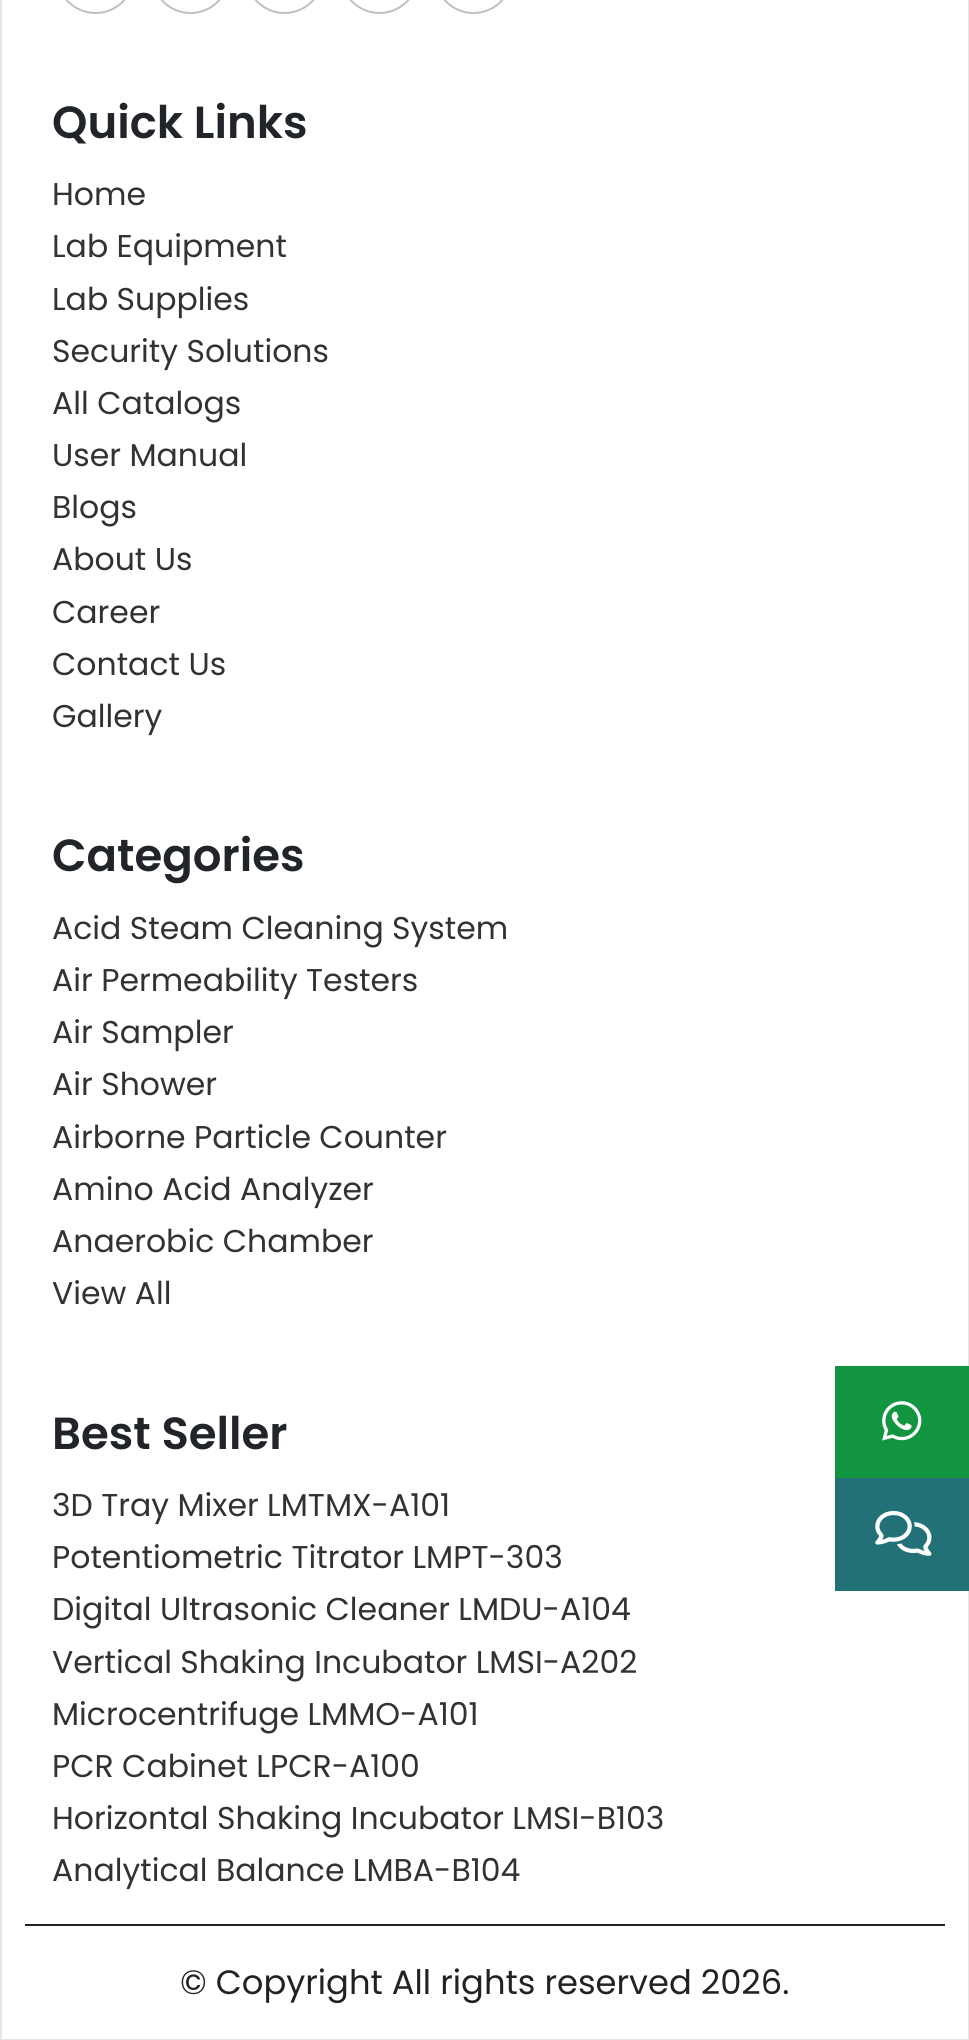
#include <cairo.h>
#include <math.h>
#include <stddef.h>

static cairo_t *c;
static void C(unsigned color){cairo_set_source_rgb(c, (color >> 16) / 255.0, (color >> 8 & 255) / 255.0, (color & 255) / 255.0);}
static void F(const char *family, double size, int italic, int bold){cairo_select_font_face(c, family, italic ? CAIRO_FONT_SLANT_ITALIC : CAIRO_FONT_SLANT_NORMAL,bold ? CAIRO_FONT_WEIGHT_BOLD : CAIRO_FONT_WEIGHT_NORMAL);cairo_set_font_size(c, size);}
static void T(double x, double y, const char *s){cairo_move_to(c, x, y);cairo_show_text(c, s);}
static void R(double x, double y, double w, double h){cairo_rectangle(c, x, y, w, h);cairo_fill(c);}
static void Q(double x, double y, double w, double h, double r){cairo_new_sub_path(c);cairo_arc(c, x + w - r, y + h - r, r, 0, M_PI / 2);cairo_arc(c, x + r, y + h - r, r, M_PI / 2, M_PI);cairo_arc(c, x + r, y + r, r, M_PI, 1.5 * M_PI);cairo_arc(c, x + w - r, y + r, r, 1.5 * M_PI, 2 * M_PI);cairo_close_path(c);}
static void I(const char *path, double x, double y, double w, double h){cairo_surface_t *image = cairo_image_surface_create_from_png(path);cairo_save(c);cairo_set_source_surface(c, image, x, y);cairo_rectangle(c, x, y, w, h);cairo_fill(c);cairo_restore(c);cairo_surface_destroy(image);}
int main(void) {
cairo_surface_t *surface = cairo_image_surface_create(CAIRO_FORMAT_RGB24, 969, 2040);
c = cairo_create(surface);
cairo_font_options_t *options = cairo_font_options_create();
cairo_font_options_set_hint_metrics(options, CAIRO_HINT_METRICS_OFF);
cairo_font_options_set_hint_style(options, CAIRO_HINT_STYLE_NONE);
cairo_set_font_options(c, options);
cairo_set_miter_limit(c, 4);
C(0xffffff);
cairo_paint(c);
cairo_rectangle(c,1,-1,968,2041);
C(0xe5e5e5);
cairo_stroke(c);
Q(57,-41,77,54,38.5);
C(0xc0c0c0);
cairo_stroke(c);
Q(152,-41,77,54,38.5);
cairo_stroke(c);
Q(246,-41,77,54,38.5);
cairo_stroke(c);
Q(341,-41,77,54,38.5);
cairo_stroke(c);
Q(435,-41,77,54,38.5);
cairo_stroke(c);
F("Poppins SemiBold",45,0,0);
C(0x212529);
T(52,138,"Quick Links");
F("Poppins",31.5,0,0);
C(0x323232);
T(52,205,"Home");
T(52,257,"Lab Equipment");
T(52,310,"Lab Supplies");
T(52,362,"Security Solutions");
T(52,414,"All Catalogs");
T(52,466,"User Manual");
T(52,518,"Blogs");
T(52,570,"About Us");
T(52,623,"Career");
T(52,675,"Contact Us");
T(52,727,"Gallery");
F("Poppins SemiBold",45,0,0);
C(0x212529);
T(52,871,"Categories");
F("Poppins",31.5,0,0);
C(0x323232);
T(52,939,"Acid Steam Cleaning System");
T(52,991,"Air Permeability Testers");
T(52,1043,"Air Sampler");
T(52,1095,"Air Shower");
T(52,1148,"Airborne Particle Counter");
T(52,1200,"Amino Acid Analyzer");
T(52,1252,"Anaerobic Chamber");
T(52,1304,"View All");
F("Poppins SemiBold",45,0,0);
C(0x212529);
T(52,1449,"Best Seller");
F("Poppins",31.5,0,0);
C(0x323232);
T(52,1516,"3D Tray Mixer LMTMX-A101");
T(52,1568,"Potentiometric Titrator LMPT-303");
T(52,1620,"Digital Ultrasonic Cleaner LMDU-A104");
T(52,1673,"Vertical Shaking Incubator LMSI-A202");
T(52,1725,"Microcentrifuge LMMO-A101");
T(52,1777,"PCR Cabinet LPCR-A100");
T(52,1829,"Horizontal Shaking Incubator LMSI-B103");
T(52,1881,"Analytical Balance LMBA-B104");
C(0x212529);
R(25,1924,920,2);
F("Poppins",33.75,0,0);
C(0x222222);
T(180,1994,"© Copyright All rights reserved 2026.");
C(0x119541);
R(835,1366,134,112);
I("1.png",882,1401,40,40);
C(0x217177);
R(835,1478,134,113);
I("2.png",875,1510,57,46);
cairo_surface_write_to_png(surface, "o.png");
cairo_font_options_destroy(options);
cairo_destroy(c);
cairo_surface_destroy(surface);
return 0;
}
